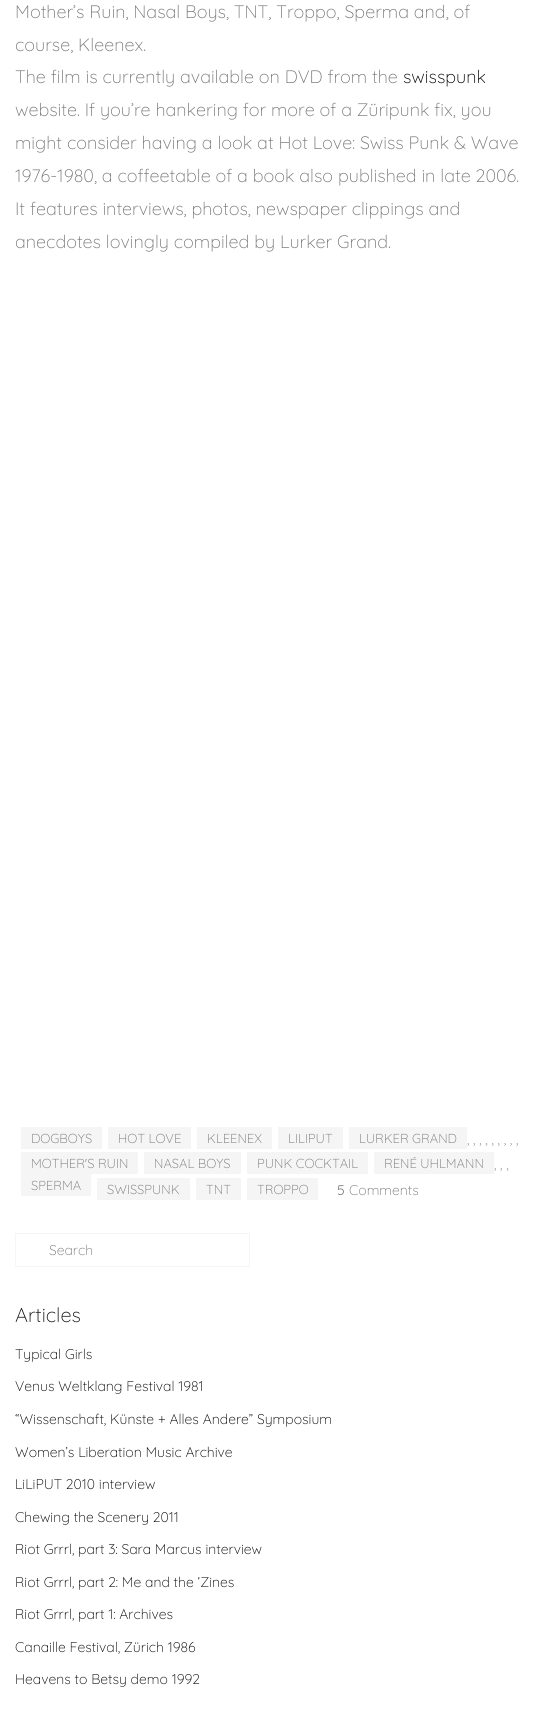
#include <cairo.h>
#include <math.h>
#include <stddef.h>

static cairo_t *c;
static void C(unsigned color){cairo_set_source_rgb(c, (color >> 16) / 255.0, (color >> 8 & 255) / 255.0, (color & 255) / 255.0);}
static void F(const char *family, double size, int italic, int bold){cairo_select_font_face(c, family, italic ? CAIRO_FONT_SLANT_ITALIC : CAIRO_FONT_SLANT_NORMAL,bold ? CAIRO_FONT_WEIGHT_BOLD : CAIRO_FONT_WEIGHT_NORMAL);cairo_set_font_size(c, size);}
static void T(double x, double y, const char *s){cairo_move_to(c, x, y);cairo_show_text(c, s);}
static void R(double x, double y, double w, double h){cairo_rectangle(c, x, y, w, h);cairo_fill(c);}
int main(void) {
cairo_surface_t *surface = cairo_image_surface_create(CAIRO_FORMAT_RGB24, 538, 1711);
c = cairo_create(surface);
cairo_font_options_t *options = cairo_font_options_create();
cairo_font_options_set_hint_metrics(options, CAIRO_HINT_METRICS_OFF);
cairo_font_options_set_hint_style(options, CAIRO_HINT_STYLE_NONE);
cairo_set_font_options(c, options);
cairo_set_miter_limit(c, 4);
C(0xffffff);
cairo_paint(c);
F("Quicksand Light",18,0,0);
C(0x777777);
T(15,18,"Mother’s Ruin, Nasal Boys, TNT, Troppo, Sperma and, of");
T(15,51,"course, Kleenex.");
T(15,83,"The film is currently available on DVD from the");
C(0x000000);
T(403,83,"swisspunk");
C(0x777777);
T(15,116,"website. If you’re hankering for more of a Züripunk fix, you");
T(15,149,"might consider having a look at Hot Love: Swiss Punk & Wave");
T(15,182,"1976-1980, a coffeetable of a book also published in late 2006.");
T(15,215,"It features interviews, photos, newspaper clippings and");
T(15,248,"anecdotes lovingly compiled by Lurker Grand.");
C(0xf5f5f5);
R(21,1127,81,22);
F("Quicksand Light",13,0,0);
C(0x777777);
T(31,1143,"DOGBOYS");
C(0xf5f5f5);
R(108,1127,83,22);
C(0x777777);
T(118,1143,"HOT LOVE");
C(0xf5f5f5);
R(197,1127,75,22);
C(0x777777);
T(207,1143,"KLEENEX");
C(0xf5f5f5);
R(278,1127,65,22);
C(0x777777);
T(288,1143,"LILIPUT");
C(0xf5f5f5);
R(349,1127,118,22);
C(0x777777);
T(359,1143,"LURKER GRAND");
F("Quicksand Light",14,0,0);
T(467,1144,", , , , , , , , ,");
C(0xf5f5f5);
R(21,1152,117,22);
F("Quicksand Light",13,0,0);
C(0x777777);
T(31,1168,"MOTHER'S RUIN");
C(0xf5f5f5);
R(144,1152,97,22);
C(0x777777);
T(154,1168,"NASAL BOYS");
C(0xf5f5f5);
R(247,1152,121,22);
C(0x777777);
T(257,1168,"PUNK COCKTAIL");
C(0xf5f5f5);
R(374,1152,120,22);
C(0x777777);
T(384,1168,"RENÉ UHLMANN");
F("Quicksand Light",14,0,0);
T(494,1169,", , ,");
C(0xf5f5f5);
R(21,1174,70,22);
F("Quicksand Light",13,0,0);
C(0x777777);
T(31,1190,"SPERMA");
C(0xf5f5f5);
R(97,1178,93,22);
C(0x777777);
T(107,1194,"SWISSPUNK");
C(0xf5f5f5);
R(196,1178,45,22);
C(0x777777);
T(206,1194,"TNT");
C(0xf5f5f5);
R(247,1178,71,22);
C(0x777777);
T(257,1194,"TROPPO");
F("Quicksand",14,0,0);
T(337,1195,"5");
F("Quicksand Light",14,0,0);
T(349,1195,"Comments");
cairo_rectangle(c,15.5,1233.5,234,33);
C(0xf5f5f5);
cairo_set_line_width(c,1);
cairo_stroke(c);
C(0x777777);
T(49,1255,"Search");
F("Quicksand Light",20,0,0);
C(0x111111);
T(15,1322,"Articles");
F("Quicksand Light",14,0,0);
C(0x000000);
T(15,1359,"Typical Girls");
T(15,1391,"Venus Weltklang Festival 1981");
T(15,1424,"“Wissenschaft, Künste + Alles Andere” Symposium");
T(15,1457,"Women’s Liberation Music Archive");
T(15,1489,"LiLiPUT 2010 interview");
T(15,1522,"Chewing the Scenery 2011");
T(15,1554,"Riot Grrrl, part 3: Sara Marcus interview");
T(15,1587,"Riot Grrrl, part 2: Me and the ‘Zines");
T(15,1619,"Riot Grrrl, part 1: Archives");
T(15,1652,"Canaille Festival, Zürich 1986");
T(15,1684,"Heavens to Betsy demo 1992");
cairo_surface_write_to_png(surface, "o.png");
cairo_font_options_destroy(options);
cairo_destroy(c);
cairo_surface_destroy(surface);
return 0;
}
